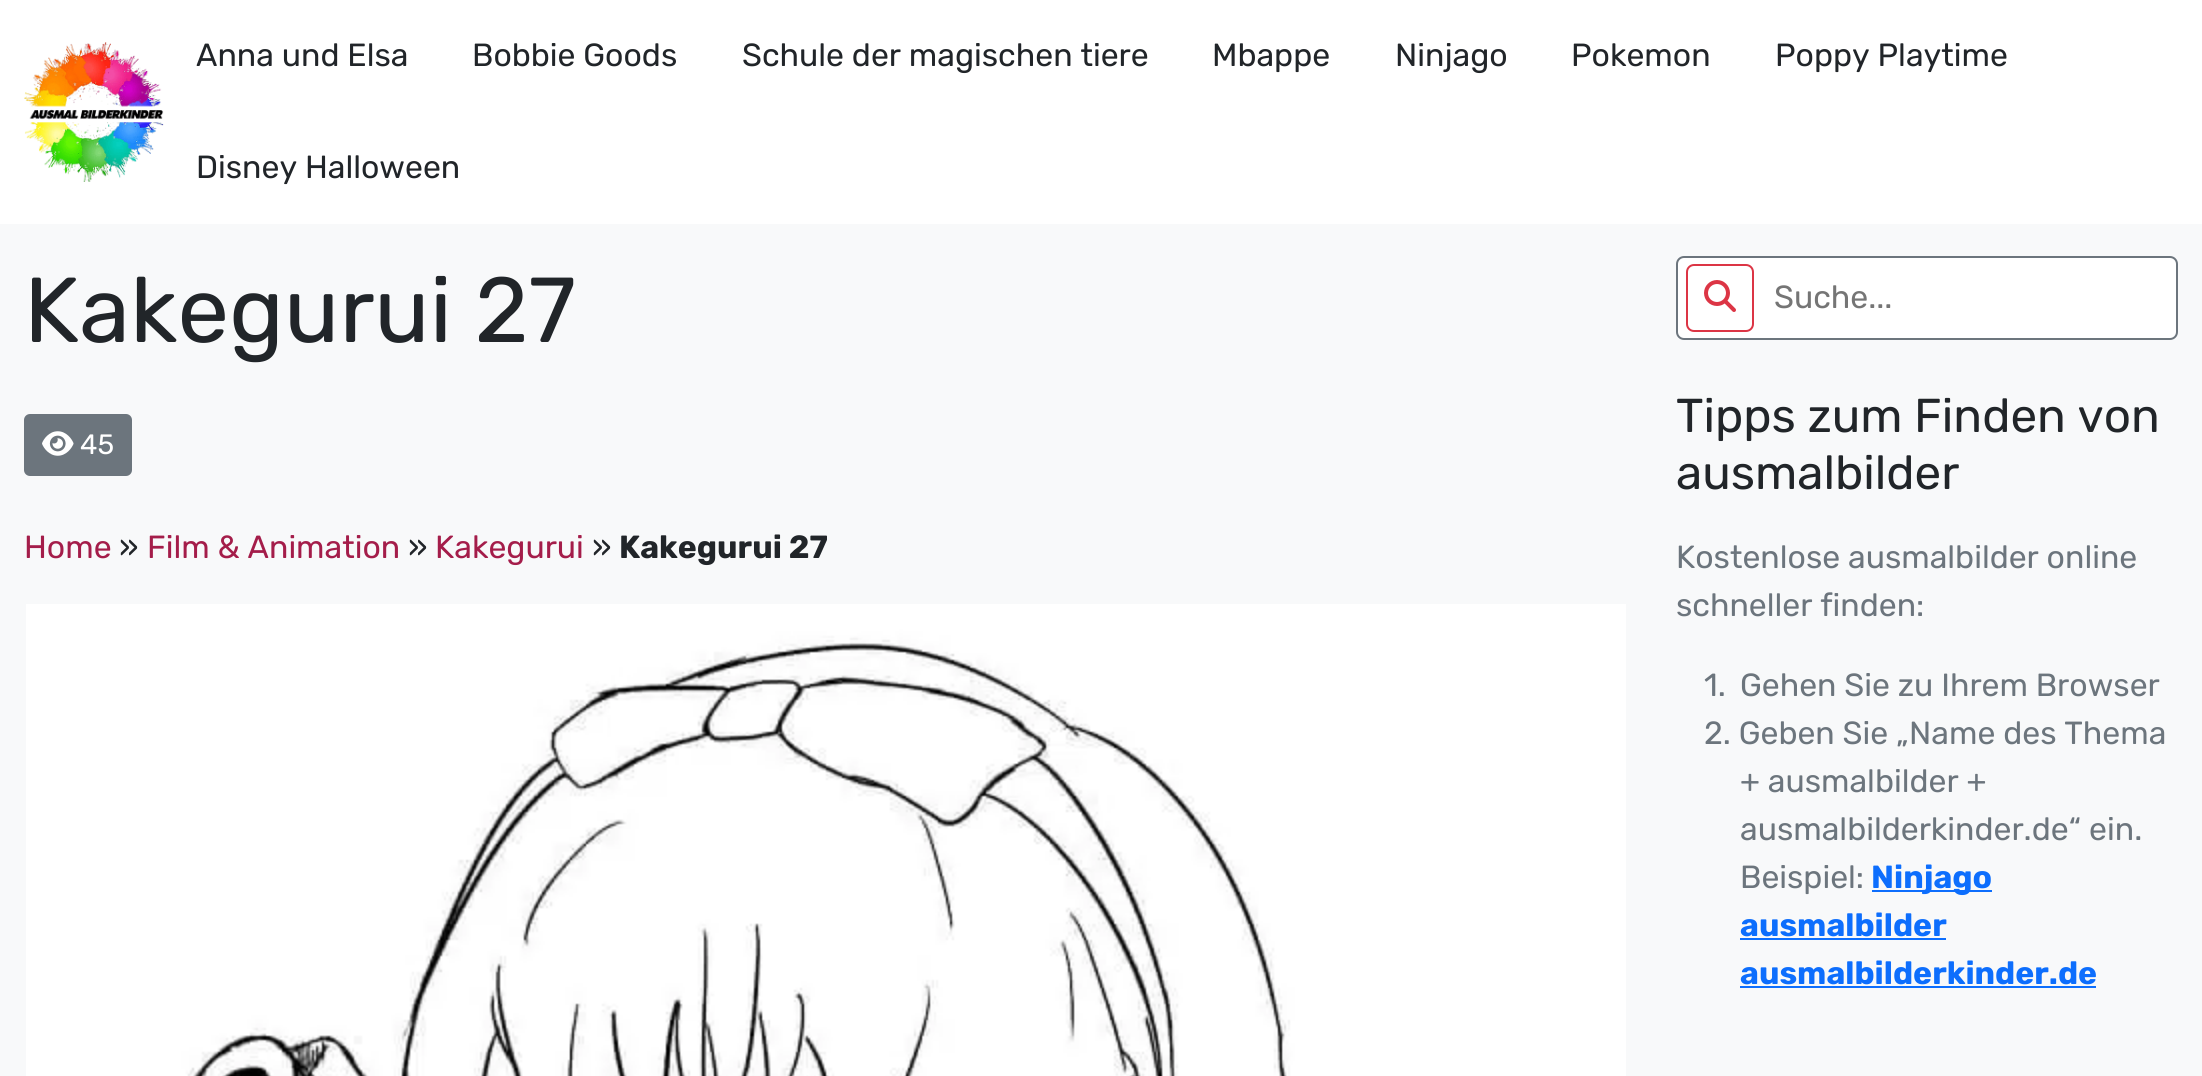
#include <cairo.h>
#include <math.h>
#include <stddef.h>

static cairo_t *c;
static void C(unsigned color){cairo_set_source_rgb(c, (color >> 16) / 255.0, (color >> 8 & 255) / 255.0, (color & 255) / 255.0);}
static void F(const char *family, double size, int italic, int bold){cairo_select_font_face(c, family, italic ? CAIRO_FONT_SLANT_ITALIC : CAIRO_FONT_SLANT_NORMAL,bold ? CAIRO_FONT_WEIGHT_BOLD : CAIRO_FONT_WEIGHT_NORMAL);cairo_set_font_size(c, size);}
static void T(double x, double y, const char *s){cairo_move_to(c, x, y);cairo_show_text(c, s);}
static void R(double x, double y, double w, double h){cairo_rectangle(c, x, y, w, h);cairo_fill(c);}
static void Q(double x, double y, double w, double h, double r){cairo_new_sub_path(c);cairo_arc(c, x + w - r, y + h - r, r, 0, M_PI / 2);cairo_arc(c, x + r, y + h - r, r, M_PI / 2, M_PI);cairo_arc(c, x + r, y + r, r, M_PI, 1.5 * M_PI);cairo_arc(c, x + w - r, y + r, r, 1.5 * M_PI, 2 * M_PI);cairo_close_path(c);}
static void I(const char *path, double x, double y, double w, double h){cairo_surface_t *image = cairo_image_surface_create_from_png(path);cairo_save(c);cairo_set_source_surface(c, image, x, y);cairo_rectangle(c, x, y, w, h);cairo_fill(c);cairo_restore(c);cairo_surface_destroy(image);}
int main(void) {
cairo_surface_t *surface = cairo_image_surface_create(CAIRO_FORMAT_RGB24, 2202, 1076);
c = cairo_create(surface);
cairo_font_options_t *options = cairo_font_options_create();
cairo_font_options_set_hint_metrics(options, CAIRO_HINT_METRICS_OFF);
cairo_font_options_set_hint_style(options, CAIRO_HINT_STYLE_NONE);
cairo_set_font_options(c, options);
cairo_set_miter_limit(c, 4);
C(0xf8f9fa);
cairo_paint(c);
C(0xffffff);
R(0,0,2202,224);
I("1.png",24,42,140,140);
F("Rubik",32,0,0);
C(0x212529);
T(196,66,"Anna und Elsa");
T(472,66,"Bobbie Goods");
T(742,66,"Schule der magischen tiere");
T(1212,66,"Mbappe");
T(1395,66,"Ninjago");
T(1571,66,"Pokemon");
T(1775,66,"Poppy Playtime");
T(196,178,"Disney Halloween");
F("Rubik",92,0,0);
T(24,342,"Kakegurui 27");
C(0x6c757d);
Q(25,415,106,60,5);
cairo_fill_preserve(c);
cairo_stroke(c);
I("2.png",42,431,32,25);
F("Rubik",28,0,0);
C(0xffffff);
T(80,454,"45");
F("Rubik",32,0,0);
C(0xa41d4a);
T(24,558,"Home");
C(0x212529);
T(119,558,"»");
C(0xa41d4a);
T(147,558,"Film & Animation");
C(0x212529);
T(408,558,"»");
C(0xa41d4a);
T(435,558,"Kakegurui");
C(0x212529);
T(592,558,"»");
F("Rubik",32,0,1);
T(619,558,"Kakegurui 27");
I("3.png",26,604,1600,472);
C(0xffffff);
Q(1677,257,500,82,7);
cairo_fill_preserve(c);
C(0x6c757d);
cairo_stroke(c);
Q(1687,265,66,66,7);
C(0xdc3545);
cairo_stroke(c);
I("4.png",1704,280,32,32);
F("Rubik",32,0,0);
C(0x757575);
T(1774,308,"Suche...");
F("Rubik",47.5,0,0);
C(0x212529);
T(1676,432,"Tipps zum Finden von");
T(1676,489,"ausmalbilder");
F("Rubik",32,0,0);
C(0x6c757d);
T(1676,568,"Kostenlose ausmalbilder online");
T(1676,616,"schneller finden:");
T(1704,696,"1.");
T(1740,696,"Gehen Sie zu Ihrem Browser");
T(1704,744,"2. Geben Sie „Name des Thema");
T(1740,792,"+ ausmalbilder +");
T(1740,840,"ausmalbilderkinder.de“ ein.");
T(1740,888,"Beispiel:");
C(0x0d6efd);
R(1872,890,120,2);
F("Rubik",32,0,1);
T(1871,888,"Ninjago");
T(1740,936,"ausmalbilder");
R(1740,938,206,2);
T(1740,984,"ausmalbilderkinder.de");
R(1740,986,356,2);
cairo_surface_write_to_png(surface, "o.png");
cairo_font_options_destroy(options);
cairo_destroy(c);
cairo_surface_destroy(surface);
return 0;
}
